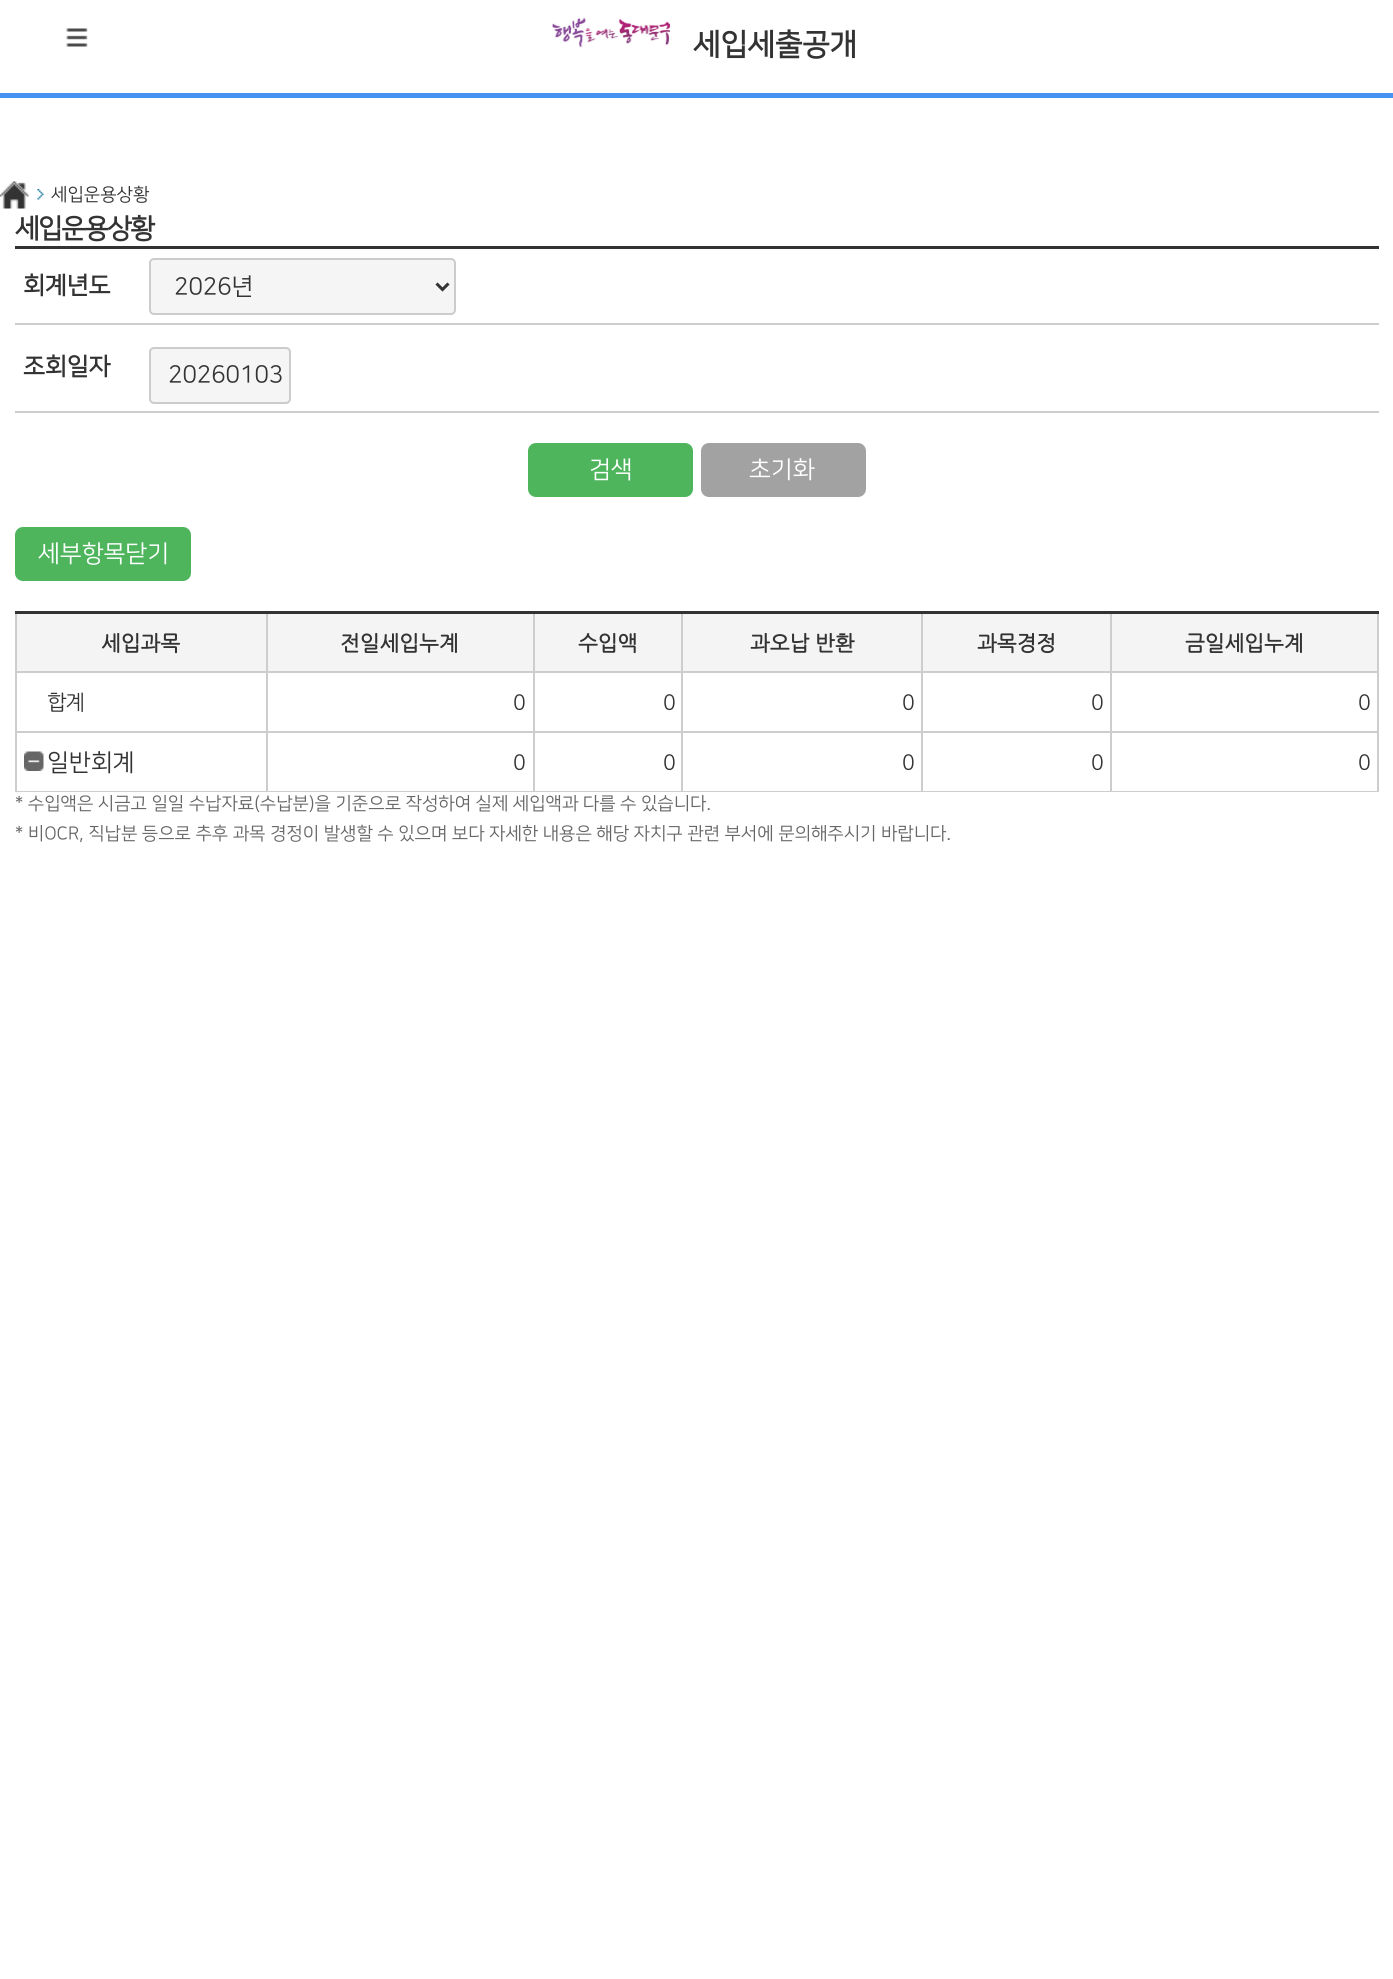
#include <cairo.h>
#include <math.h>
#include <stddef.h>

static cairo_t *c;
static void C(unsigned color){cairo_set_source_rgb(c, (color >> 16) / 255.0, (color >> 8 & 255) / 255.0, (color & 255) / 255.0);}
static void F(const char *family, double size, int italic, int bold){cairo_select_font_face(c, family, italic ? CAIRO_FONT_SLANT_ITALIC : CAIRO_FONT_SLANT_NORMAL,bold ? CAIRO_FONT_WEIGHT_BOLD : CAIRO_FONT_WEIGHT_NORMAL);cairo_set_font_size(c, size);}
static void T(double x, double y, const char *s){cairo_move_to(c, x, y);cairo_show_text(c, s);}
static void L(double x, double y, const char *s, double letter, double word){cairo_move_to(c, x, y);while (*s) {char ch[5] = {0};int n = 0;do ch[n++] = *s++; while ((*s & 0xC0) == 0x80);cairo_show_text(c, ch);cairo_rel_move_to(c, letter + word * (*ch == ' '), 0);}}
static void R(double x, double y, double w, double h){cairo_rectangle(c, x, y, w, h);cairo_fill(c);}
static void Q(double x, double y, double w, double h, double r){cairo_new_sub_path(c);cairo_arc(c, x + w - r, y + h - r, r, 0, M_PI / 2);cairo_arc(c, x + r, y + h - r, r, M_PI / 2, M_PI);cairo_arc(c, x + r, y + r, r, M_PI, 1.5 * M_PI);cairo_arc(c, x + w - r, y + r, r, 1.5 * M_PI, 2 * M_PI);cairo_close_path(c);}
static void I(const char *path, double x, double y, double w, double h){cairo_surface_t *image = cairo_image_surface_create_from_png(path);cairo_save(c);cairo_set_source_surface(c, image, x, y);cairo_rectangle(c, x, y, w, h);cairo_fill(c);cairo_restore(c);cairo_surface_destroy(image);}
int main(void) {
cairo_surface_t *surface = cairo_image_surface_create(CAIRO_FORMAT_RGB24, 1393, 1979);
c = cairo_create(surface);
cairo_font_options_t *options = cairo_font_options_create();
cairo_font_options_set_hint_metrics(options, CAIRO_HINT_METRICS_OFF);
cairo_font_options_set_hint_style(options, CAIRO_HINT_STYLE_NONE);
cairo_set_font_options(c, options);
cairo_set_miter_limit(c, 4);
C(0xffffff);
cairo_paint(c);
C(0x4793f2);
R(0,93,1393,5);
I("1.png",65,28,23,19);
I("2.png",552,17,118,31);
F("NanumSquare",30,0,1);
C(0x333333);
T(693,54,"세입세출공개");
I("3.png",37,189,7,11);
I("4.png",0,181,29,28);
F("NanumSquare",18,0,0);
T(51,200,"세입운용상황");
F("NanumSquare",27,0,1);
L(15,237,"세입운용상황",-1.5,0);
R(15,246,1364,3);
C(0xcdcdcd);
R(15,323,1364,2);
F("NanumSquare",24,0,1);
C(0x333333);
T(23,293,"회계년도");
C(0xf5f5f5);
Q(150,259,305,55,4);
cairo_fill_preserve(c);
C(0xcccccc);
cairo_stroke(c);
cairo_new_path(c);
cairo_move_to(c,436.5,283.5);
cairo_line_to(c,442.5,289.5);
cairo_line_to(c,448.5,283.5);
C(0x333333);
cairo_set_line_width(c,3);
cairo_stroke(c);
F("NanumSquare",24,0,0);
T(174,294,"2026년");
C(0xcdcdcd);
R(15,411,1364,2);
F("NanumSquare",24,0,1);
C(0x333333);
T(23,374,"조회일자");
C(0xf5f5f5);
Q(150,348,140,55,4);
cairo_fill_preserve(c);
C(0xcccccc);
cairo_set_line_width(c,2);
cairo_stroke(c);
F("NanumSquare",24,0,0);
C(0x333333);
T(168,382,"20260103");
C(0x4eb55d);
Q(528,443,165,54,8);
cairo_fill(c);
C(0xffffff);
T(589,477,"검색");
C(0xa2a2a2);
Q(701,443,165,54,8);
cairo_fill(c);
C(0xffffff);
T(749,477,"초기화");
C(0x4eb55d);
Q(15,527,176,54,8);
cairo_fill(c);
C(0xffffff);
T(38,561,"세부항목닫기");
C(0xcdcdcd);
R(15,611,2,181);
R(1377,611,2,181);
R(1110,791,269,1);
R(1110,731,2,61);
R(1110,731,269,2);
R(1110,671,2,61);
R(1110,671,269,2);
R(1110,611,2,61);
R(921,791,191,1);
R(921,731,2,61);
R(921,731,191,2);
R(921,671,2,61);
R(921,671,191,2);
R(921,611,2,61);
R(681,791,242,1);
R(681,731,2,61);
R(681,731,242,2);
R(681,671,2,61);
R(681,671,242,2);
R(681,611,2,61);
R(533,791,150,1);
R(533,731,2,61);
R(533,731,150,2);
R(533,671,2,61);
R(533,671,150,2);
R(533,611,2,61);
R(266,791,268,1);
R(266,731,2,61);
R(266,731,268,2);
R(266,671,2,61);
R(266,671,268,2);
R(266,611,2,61);
C(0x333333);
R(15,611,1364,3);
C(0xf4f4f4);
R(17,614,249,57);
C(0xcdcdcd);
R(15,671,252,2);
F("NanumGothic",21,0,1);
C(0x333333);
T(101,650,"세입과목");
C(0xf4f4f4);
R(268,614,265,57);
C(0x333333);
T(340,650,"전일세입누계");
C(0xf4f4f4);
R(535,614,146,57);
C(0x333333);
T(578,650,"수입액");
C(0xf4f4f4);
R(683,614,238,57);
C(0x333333);
T(750,650,"과오납 반환");
C(0xf4f4f4);
R(923,614,187,57);
C(0x333333);
T(977,650,"과목경정");
C(0xf4f4f4);
R(1112,614,265,57);
C(0x333333);
T(1185,650,"금일세입누계");
C(0xcdcdcd);
R(15,731,252,2);
F("NanumGothic",21,0,0);
C(0x333333);
L(47,709,"합계",-1.5,0);
L(513,709,"0",-1.5,0);
L(663,709,"0",-1.5,0);
L(902,709,"0",-1.5,0);
L(1091,709,"0",-1.5,0);
L(1358,709,"0",-1.5,0);
I("5.png",24,751,20,20);
C(0xcdcdcd);
R(15,791,252,1);
F("NanumSquare",24,0,0);
C(0x333333);
T(47,770,"일반회계");
F("NanumGothic",21,0,0);
L(513,769,"0",-1.5,0);
L(663,769,"0",-1.5,0);
L(902,769,"0",-1.5,0);
L(1091,769,"0",-1.5,0);
L(1358,769,"0",-1.5,0);
F("NanumSquare",18,0,0);
C(0x666666);
T(15,809,"* 수입액은 시금고 일일 수납자료(수납분)을 기준으로 작성하여 실제 세입액과 다를 수 있습니다.");
T(15,839,"* 비OCR, 직납분 등으로 추후 과목 경정이 발생할 수 있으며 보다 자세한 내용은 해당 자치구 관련 부서에 문의해주시기 바랍니다.");
cairo_surface_write_to_png(surface, "o.png");
cairo_font_options_destroy(options);
cairo_destroy(c);
cairo_surface_destroy(surface);
return 0;
}
